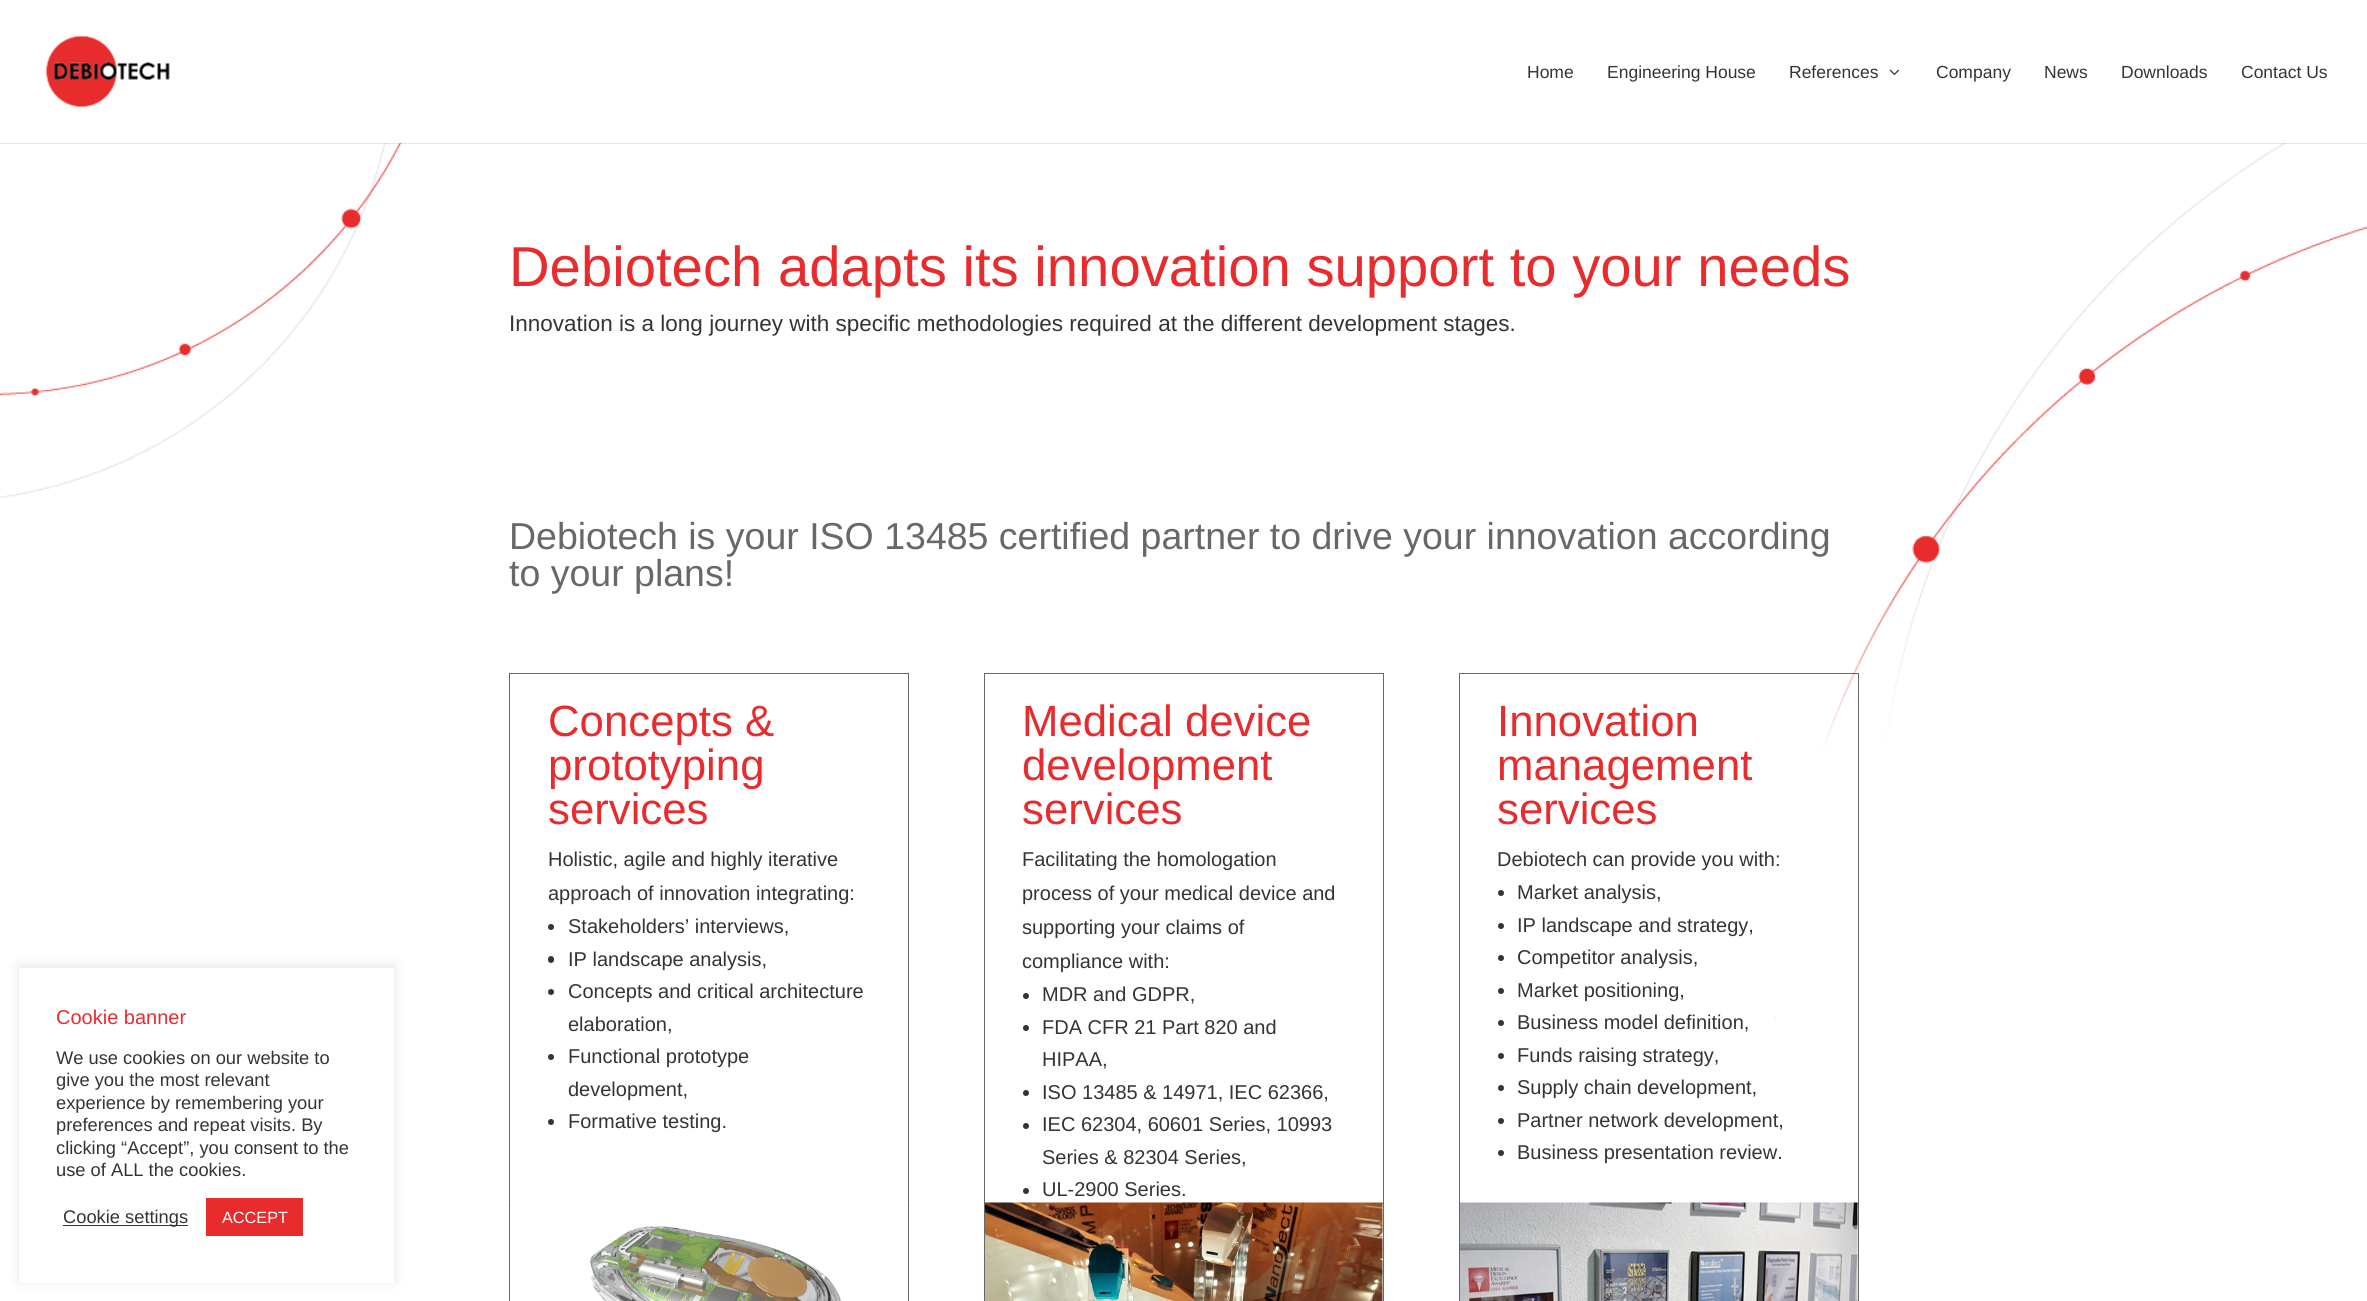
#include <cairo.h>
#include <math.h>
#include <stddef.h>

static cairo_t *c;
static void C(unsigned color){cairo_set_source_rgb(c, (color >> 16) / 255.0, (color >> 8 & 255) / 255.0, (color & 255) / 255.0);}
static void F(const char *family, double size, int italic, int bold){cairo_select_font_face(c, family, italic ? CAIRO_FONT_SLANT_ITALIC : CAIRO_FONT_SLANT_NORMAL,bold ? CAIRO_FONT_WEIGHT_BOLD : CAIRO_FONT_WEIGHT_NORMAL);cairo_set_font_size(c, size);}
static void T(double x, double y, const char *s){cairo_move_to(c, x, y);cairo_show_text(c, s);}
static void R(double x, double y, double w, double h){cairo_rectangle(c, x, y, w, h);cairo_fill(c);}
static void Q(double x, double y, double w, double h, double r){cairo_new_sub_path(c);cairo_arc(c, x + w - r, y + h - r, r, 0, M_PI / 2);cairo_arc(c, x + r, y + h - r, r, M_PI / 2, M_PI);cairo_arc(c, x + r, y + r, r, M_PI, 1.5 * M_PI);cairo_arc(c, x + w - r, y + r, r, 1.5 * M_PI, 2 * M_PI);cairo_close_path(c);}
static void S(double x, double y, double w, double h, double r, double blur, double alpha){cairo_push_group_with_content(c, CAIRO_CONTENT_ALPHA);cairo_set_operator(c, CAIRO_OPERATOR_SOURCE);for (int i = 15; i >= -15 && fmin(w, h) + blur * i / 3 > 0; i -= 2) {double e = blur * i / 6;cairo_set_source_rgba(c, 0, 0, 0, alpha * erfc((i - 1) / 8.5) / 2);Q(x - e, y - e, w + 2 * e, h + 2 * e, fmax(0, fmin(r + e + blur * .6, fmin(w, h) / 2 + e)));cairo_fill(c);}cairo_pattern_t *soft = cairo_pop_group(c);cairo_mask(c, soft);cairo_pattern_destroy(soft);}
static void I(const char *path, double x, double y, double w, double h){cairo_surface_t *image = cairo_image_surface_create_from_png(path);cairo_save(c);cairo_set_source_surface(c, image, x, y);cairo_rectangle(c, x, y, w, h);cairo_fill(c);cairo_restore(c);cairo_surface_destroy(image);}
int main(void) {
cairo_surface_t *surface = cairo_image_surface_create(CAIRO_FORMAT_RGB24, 2367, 1301);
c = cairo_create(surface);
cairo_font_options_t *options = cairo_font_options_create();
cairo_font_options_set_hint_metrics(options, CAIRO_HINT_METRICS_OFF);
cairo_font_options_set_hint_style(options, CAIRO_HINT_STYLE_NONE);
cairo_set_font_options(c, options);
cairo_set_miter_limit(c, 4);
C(0xffffff);
cairo_paint(c);
I("3.png",0,143,2367,875);
C(0xacabab);
S(19,966,375,315,0,6,.3);
C(0xffffff);
R(19,968,375,315);
F("Liberation Sans",20,0,0);
C(0xe82c2e);
T(56,1024,"Cookie banner");
F("Liberation Sans",18.3,0,0);
C(0x343434);
T(56,1064,"We use cookies on our website to");
T(56,1086,"give you the most relevant");
T(56,1109,"experience by remembering your");
T(56,1131,"preferences and repeat visits. By");
T(56,1154,"clicking “Accept”, you consent to the");
T(56,1176,"use of ALL the cookies.");
C(0x333333);
R(63,1225,125,1);
C(0x343434);
T(63,1223,"Cookie settings");
C(0xe82c2e);
R(206,1198,97,38);
F("Liberation Sans",16.25,0,0);
C(0xffffff);
T(222,1223,"ACCEPT");
cairo_set_source_rgba(c,0,0,0,0.1);
cairo_new_path(c);
cairo_move_to(c,0,142);
cairo_line_to(c,0,144);
cairo_line_to(c,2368,144);
cairo_line_to(c,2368,1);
cairo_line_to(c,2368,142);
cairo_close_path(c);
cairo_fill(c);
C(0xffffff);
R(0,142,2367,1);
I("1.png",46,35,124,73);
F("Liberation Sans",17.5,0,0);
C(0x343434);
T(1527,78,"Home");
T(1607,78,"Engineering House");
T(1789,78,"References");
I("2.png",1889,69,10,6);
T(1936,78,"Company");
T(2044,78,"News");
T(2121,78,"Downloads");
T(2241,78,"Contact Us");
F("Liberation Sans",56.25,0,0);
C(0xe82c2e);
T(509,286,"Debiotech adapts its innovation support to your needs");
F("Liberation Sans",22.5,0,0);
C(0x343434);
T(509,331,"Innovation is a long journey with specific methodologies required at the different development stages.");
F("Liberation Sans",37.5,0,0);
C(0x686868);
T(509,549,"Debiotech is your ISO 13485 certified partner to drive your innovation according");
T(509,586,"to your plans!");
R(509,673,400,1);
cairo_new_path(c);
cairo_move_to(c,909,672);
cairo_line_to(c,909,1204);
cairo_line_to(c,908,1202);
cairo_line_to(c,908,674);
cairo_close_path(c);
cairo_fill(c);
cairo_new_path(c);
cairo_move_to(c,509,1204);
cairo_line_to(c,509,672);
cairo_line_to(c,510,674);
cairo_line_to(c,510,1202);
cairo_close_path(c);
cairo_fill(c);
F("Liberation Sans",43.75,0,0);
C(0xe82c2e);
T(548,736,"Concepts &");
T(548,780,"prototyping");
T(548,824,"services");
F("Liberation Sans",20,0,0);
C(0x343434);
T(548,866,"Holistic, agile and highly iterative");
T(548,900,"approach of innovation integrating:");
cairo_new_path(c);
cairo_arc(c,551,927,3,0,2 * M_PI);
cairo_fill(c);
T(568,933,"Stakeholders’ interviews,");
Q(548,956,6,7,3);
cairo_fill(c);
T(568,966,"IP landscape analysis,");
cairo_new_path(c);
cairo_arc(c,551,992,3,0,2 * M_PI);
cairo_fill(c);
T(568,998,"Concepts and critical architecture");
T(568,1031,"elaboration,");
cairo_new_path(c);
cairo_arc(c,551,1057,3,0,2 * M_PI);
cairo_fill(c);
T(568,1063,"Functional prototype");
T(568,1096,"development,");
cairo_new_path(c);
cairo_arc(c,551,1122,3,0,2 * M_PI);
cairo_fill(c);
T(568,1128,"Formative testing.");
I("4.png",590,1226,251,75);
C(0x686868);
R(908,1203,1,98);
R(509,1203,1,98);
cairo_rectangle(c,984.5,673.5,399,530);
cairo_set_line_width(c,1);
cairo_stroke(c);
F("Liberation Sans",43.75,0,0);
C(0xe82c2e);
T(1022,736,"Medical device");
T(1022,780,"development");
T(1022,824,"services");
F("Liberation Sans",20,0,0);
C(0x343434);
T(1022,866,"Facilitating the homologation");
T(1022,900,"process of your medical device and");
T(1022,934,"supporting your claims of");
T(1022,968,"compliance with:");
cairo_new_path(c);
cairo_arc(c,1026,996,3,0,2 * M_PI);
cairo_fill(c);
T(1042,1001,"MDR and GDPR,");
cairo_new_path(c);
cairo_arc(c,1026,1028,3,0,2 * M_PI);
cairo_fill(c);
T(1042,1034,"FDA CFR 21 Part 820 and");
T(1042,1066,"HIPAA,");
cairo_new_path(c);
cairo_arc(c,1026,1093,3,0,2 * M_PI);
cairo_fill(c);
T(1042,1099,"ISO 13485 & 14971, IEC 62366,");
cairo_new_path(c);
cairo_arc(c,1026,1126,3,0,2 * M_PI);
cairo_fill(c);
T(1042,1131,"IEC 62304, 60601 Series, 10993");
T(1042,1164,"Series & 82304 Series,");
cairo_new_path(c);
cairo_arc(c,1026,1191,3,0,2 * M_PI);
cairo_fill(c);
T(1042,1196,"UL-2900 Series.");
I("5.png",985,1202,398,99);
C(0x686868);
R(1383,1203,1,98);
R(984,1203,1,98);
cairo_rectangle(c,1459.5,673.5,399,530);
cairo_stroke(c);
F("Liberation Sans",43.75,0,0);
C(0xe82c2e);
T(1497,736,"Innovation");
T(1497,780,"management");
T(1497,824,"services");
F("Liberation Sans",20,0,0);
C(0x343434);
T(1497,866,"Debiotech can provide you with:");
cairo_new_path(c);
cairo_arc(c,1501,893,3,0,2 * M_PI);
cairo_fill(c);
T(1517,899,"Market analysis,");
cairo_new_path(c);
cairo_arc(c,1501,926,3,0,2 * M_PI);
cairo_fill(c);
T(1517,932,"IP landscape and strategy,");
cairo_new_path(c);
cairo_arc(c,1501,958,3,0,2 * M_PI);
cairo_fill(c);
T(1517,964,"Competitor analysis,");
cairo_new_path(c);
cairo_arc(c,1501,991,3,0,2 * M_PI);
cairo_fill(c);
T(1517,997,"Market positioning,");
cairo_new_path(c);
cairo_arc(c,1501,1023,3,0,2 * M_PI);
cairo_fill(c);
T(1517,1029,"Business model definition,");
cairo_new_path(c);
cairo_arc(c,1501,1056,3,0,2 * M_PI);
cairo_fill(c);
T(1517,1062,"Funds raising strategy,");
cairo_new_path(c);
cairo_arc(c,1501,1088,3,0,2 * M_PI);
cairo_fill(c);
T(1517,1094,"Supply chain development,");
cairo_new_path(c);
cairo_arc(c,1501,1121,3,0,2 * M_PI);
cairo_fill(c);
T(1517,1127,"Partner network development,");
cairo_new_path(c);
cairo_arc(c,1501,1153,3,0,2 * M_PI);
cairo_fill(c);
T(1517,1159,"Business presentation review.");
I("6.png",1460,1202,398,99);
C(0x686868);
R(1858,1203,1,98);
R(1459,1203,1,98);
cairo_surface_write_to_png(surface, "o.png");
cairo_font_options_destroy(options);
cairo_destroy(c);
cairo_surface_destroy(surface);
return 0;
}
